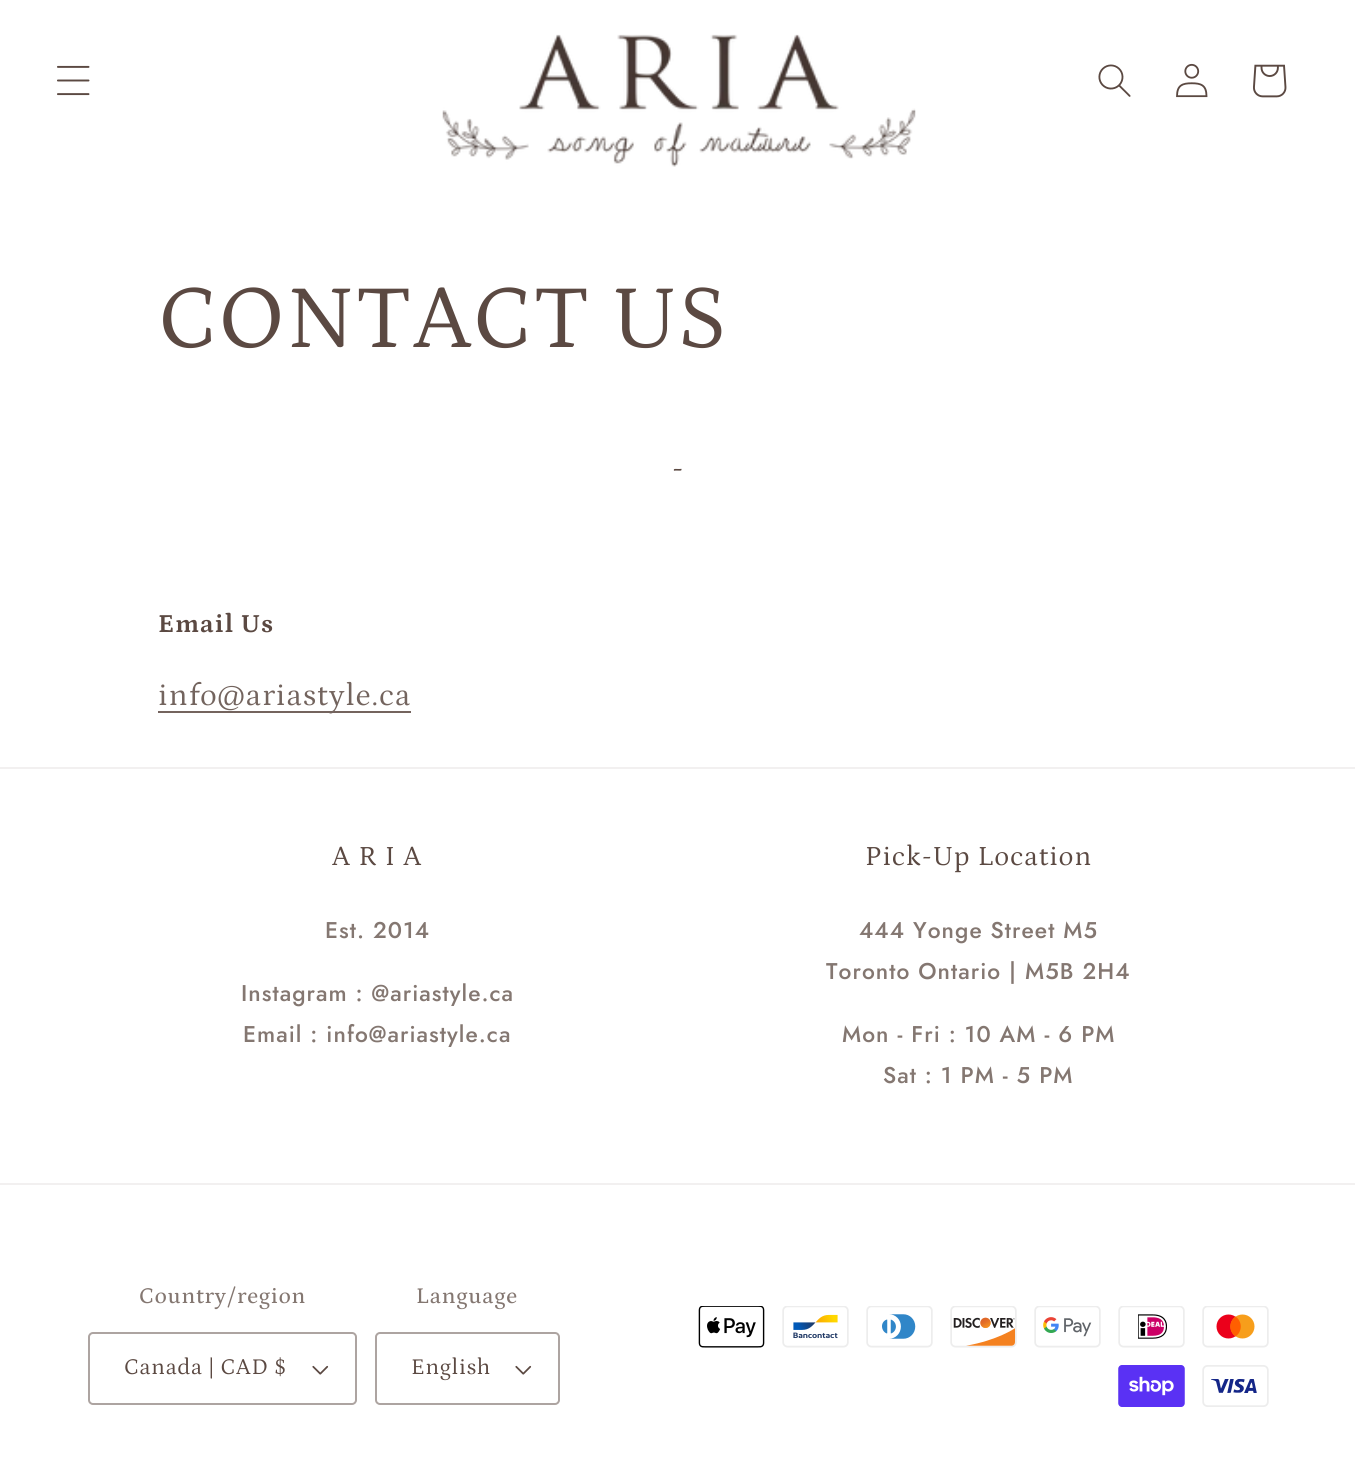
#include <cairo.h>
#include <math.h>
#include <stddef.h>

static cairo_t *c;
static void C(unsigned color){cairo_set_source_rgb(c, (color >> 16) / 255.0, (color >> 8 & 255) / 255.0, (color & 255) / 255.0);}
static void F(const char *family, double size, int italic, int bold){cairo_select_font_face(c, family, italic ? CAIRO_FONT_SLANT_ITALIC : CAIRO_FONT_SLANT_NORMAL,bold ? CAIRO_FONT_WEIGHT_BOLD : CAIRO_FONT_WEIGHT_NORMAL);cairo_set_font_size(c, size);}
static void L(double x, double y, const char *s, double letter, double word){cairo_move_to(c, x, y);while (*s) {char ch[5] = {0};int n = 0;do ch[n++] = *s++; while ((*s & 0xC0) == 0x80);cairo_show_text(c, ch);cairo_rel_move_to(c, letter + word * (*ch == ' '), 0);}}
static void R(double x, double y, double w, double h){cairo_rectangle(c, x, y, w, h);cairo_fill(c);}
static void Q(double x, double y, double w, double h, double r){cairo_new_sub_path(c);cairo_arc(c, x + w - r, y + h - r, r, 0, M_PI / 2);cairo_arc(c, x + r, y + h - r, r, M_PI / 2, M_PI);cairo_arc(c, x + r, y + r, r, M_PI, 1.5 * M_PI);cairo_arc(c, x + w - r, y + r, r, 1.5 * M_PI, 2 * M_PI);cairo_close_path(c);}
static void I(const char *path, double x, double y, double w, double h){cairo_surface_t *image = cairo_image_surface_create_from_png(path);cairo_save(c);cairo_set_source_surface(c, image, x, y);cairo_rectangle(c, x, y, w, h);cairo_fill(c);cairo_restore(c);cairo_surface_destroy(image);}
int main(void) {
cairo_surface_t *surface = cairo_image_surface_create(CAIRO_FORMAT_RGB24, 1355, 1461);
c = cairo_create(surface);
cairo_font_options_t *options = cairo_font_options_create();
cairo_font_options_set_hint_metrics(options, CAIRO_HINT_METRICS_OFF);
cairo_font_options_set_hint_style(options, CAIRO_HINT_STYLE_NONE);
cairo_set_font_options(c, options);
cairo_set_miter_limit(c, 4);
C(0xffffff);
cairo_paint(c);
I("1.png",57,65,33,31);
I("2.png",442,34,474,133);
I("3.png",1098,64,33,33);
I("4.png",1176,63,32,35);
I("5.png",1253,64,34,34);
F("Petrona",91,0,0);
C(0x5b4942);
L(158,347,"CONTACT US",1.05,0);
F("Petrona",31.5,0,0);
L(672,478,"-",1.05,0);
F("Petrona",26.25,0,1);
L(158,632,"Email Us",1.05,0);
C(0x74645e);
R(158,711,253,2);
F("Petrona",31.5,0,0);
C(0x73645e);
L(158,705,"info@ariastyle.ca",1.05,0);
C(0xf2f0f0);
R(0,767,1355,2);
F("Petrona",28,0,0);
C(0x5b4942);
L(332,865,"A R I A",1.05,0);
F("Jost Medium",22.75,0,0);
C(0x847771);
L(325,938,"Est. 2014",1.05,0);
L(241,1001,"Instagram : @ariastyle.ca",1.05,0);
L(243,1042,"Email : info@ariastyle.ca",1.05,0);
F("Petrona",28,0,0);
C(0x5b4942);
L(865,865,"Pick-Up Location",1.05,0);
F("Jost Medium",22.75,0,0);
C(0x847771);
L(859,938,"444 Yonge Street M5",1.05,0);
L(826,979,"Toronto Ontario | M5B 2H4",1.05,0);
L(842,1042,"Mon - Fri : 10 AM - 6 PM",1.05,0);
L(883,1083,"Sat : 1 PM - 5 PM",1.05,0);
C(0xf2f0f0);
R(0,1183,1355,2);
F("Petrona Medium",22.75,0,0);
C(0x847771);
L(139,1303,"Country/region",.75,0);
I("6.png",312,1365,17,10);
Q(89,1333,267,71,4);
C(0xada4a1);
cairo_stroke(c);
F("Petrona",22.75,0,0);
C(0x5b4942);
L(124,1374,"Canada | CAD $",.75,0);
F("Petrona Medium",22.75,0,0);
C(0x847771);
L(416,1303,"Language",.75,0);
I("6.png",515,1365,17,10);
Q(376,1333,183,71,4);
C(0xada4a1);
cairo_stroke(c);
F("Petrona",22.75,0,0);
C(0x5b4942);
L(411,1374,"English",.75,0);
I("7.png",698,1306,67,42);
I("8.png",782,1306,67,42);
I("9.png",866,1306,67,42);
I("10.png",950,1306,67,42);
I("11.png",1034,1306,67,42);
I("12.png",1118,1306,67,42);
I("13.png",1202,1306,67,42);
I("14.png",1118,1365,67,42);
I("15.png",1202,1365,67,42);
cairo_surface_write_to_png(surface, "o.png");
cairo_font_options_destroy(options);
cairo_destroy(c);
cairo_surface_destroy(surface);
return 0;
}
